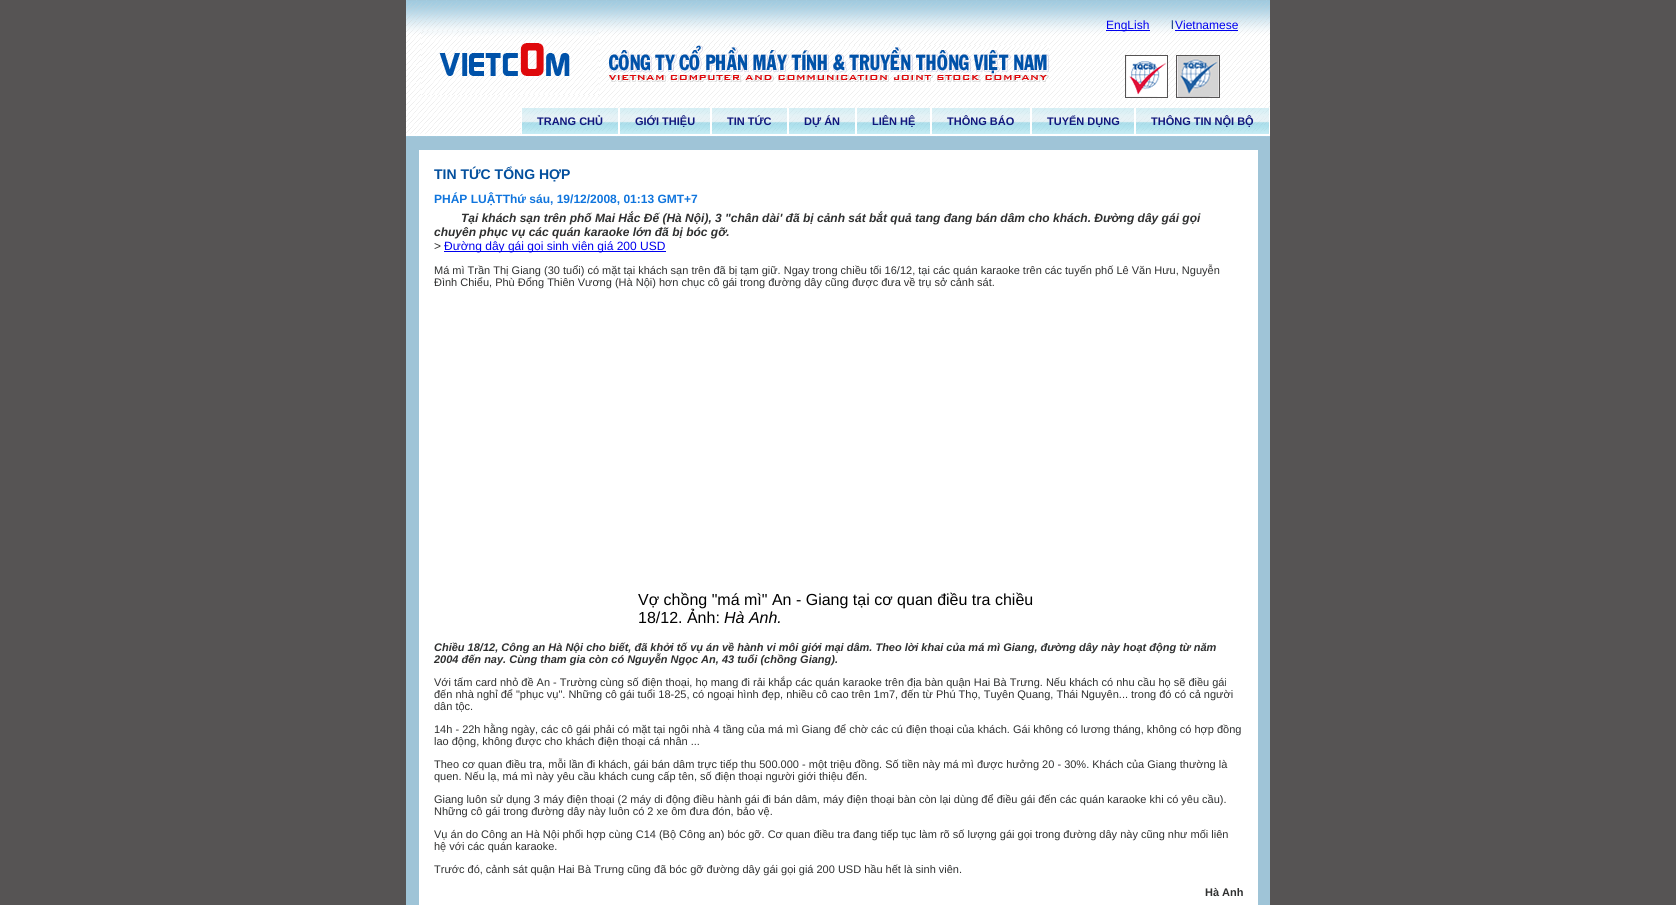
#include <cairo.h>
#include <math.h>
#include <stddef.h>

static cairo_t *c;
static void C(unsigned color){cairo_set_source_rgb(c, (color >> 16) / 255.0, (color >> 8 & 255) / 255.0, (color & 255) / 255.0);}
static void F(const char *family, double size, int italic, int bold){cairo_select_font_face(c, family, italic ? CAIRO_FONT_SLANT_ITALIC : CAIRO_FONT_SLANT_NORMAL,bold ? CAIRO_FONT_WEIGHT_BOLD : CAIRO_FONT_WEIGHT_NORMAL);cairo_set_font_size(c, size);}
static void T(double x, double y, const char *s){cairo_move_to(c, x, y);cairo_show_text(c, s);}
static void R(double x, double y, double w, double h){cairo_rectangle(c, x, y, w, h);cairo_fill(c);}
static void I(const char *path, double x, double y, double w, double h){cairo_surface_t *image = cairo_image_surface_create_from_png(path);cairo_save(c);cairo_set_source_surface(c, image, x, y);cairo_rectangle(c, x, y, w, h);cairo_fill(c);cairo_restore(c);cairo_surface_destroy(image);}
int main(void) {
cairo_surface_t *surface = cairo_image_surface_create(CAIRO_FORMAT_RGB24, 1676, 905);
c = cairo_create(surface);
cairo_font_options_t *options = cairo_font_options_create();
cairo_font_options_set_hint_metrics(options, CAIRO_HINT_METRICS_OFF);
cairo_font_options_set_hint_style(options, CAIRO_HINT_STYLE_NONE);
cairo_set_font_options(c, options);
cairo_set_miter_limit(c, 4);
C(0x565454);
cairo_paint(c);
C(0x9fc4d7);
R(406,137,864,768);
I("1.png",406,0,864,137);
C(0x0000ee);
R(1106,30,44,1);
F("Liberation Sans",12,0,0);
T(1106,29,"EngLish");
C(0x09337b);
T(1171,29,"l");
C(0x0000ee);
T(1175,29,"Vietnamese");
R(1175,30,63,1);
I("2.png",1125,55,95,43);
I("3.png",421,31,178,64);
I("4.png",609,45,440,37);
I("5.png",522,108,96,26);
C(0xffffff);
R(618,108,2,26);
R(521,108,1,26);
F("Liberation Sans",11,0,1);
C(0x10187d);
T(537,125,"TRANG CHỦ");
I("6.png",620,108,90,26);
C(0xffffff);
R(710,108,2,26);
C(0x10187d);
T(635,125,"GIỚI THIỆU");
I("7.png",712,108,75,26);
C(0xffffff);
R(787,108,2,26);
C(0x10187d);
T(727,125,"TIN TỨC");
I("8.png",789,108,66,26);
C(0xffffff);
R(855,108,2,26);
C(0x10187d);
T(804,125,"DỰ ÁN");
I("9.png",857,108,73,26);
C(0xffffff);
R(930,108,2,26);
C(0x10187d);
T(872,125,"LIÊN HỆ");
I("10.png",932,108,98,26);
C(0xffffff);
R(1030,108,2,26);
C(0x10187d);
T(947,125,"THÔNG BÁO");
I("11.png",1032,108,102,26);
C(0xffffff);
R(1134,108,2,26);
C(0x10187d);
T(1047,125,"TUYỂN DỤNG");
I("12.png",1136,108,133,26);
C(0xffffff);
R(1269,108,1,26);
C(0x10187d);
T(1151,125,"THÔNG TIN NỘI BỘ");
C(0xffffff);
R(419,150,839,755);
F("Liberation Sans",14,0,1);
C(0x034f9d);
T(434,179,"TIN TỨC TỔNG HỢP");
F("Liberation Sans",12,0,1);
C(0x1075dd);
T(434,203,"PHÁP LUẬTThứ sáu, 19/12/2008, 01:13 GMT+7");
F("Liberation Sans",12,1,1);
C(0x2f3030);
T(461,222,"Tại khách sạn trên phố Mai Hắc Đế (Hà Nội), 3 \"chân dài' đã bị cảnh sát bắt quả tang đang bán dâm cho khách. Đường dây gái gọi");
T(434,236,"chuyên phục vụ các quán karaoke lớn đã bị bóc gỡ.");
F("Liberation Sans",12,0,0);
T(434,250,">");
C(0x0000ee);
R(444,251,222,1);
T(444,250,"Đường dây gái gọi sinh viên giá 200 USD");
F("Liberation Sans",11,0,0);
C(0x2f3030);
T(434,274,"Má mì Trần Thị Giang (30 tuổi) có mặt tại khách sạn trên đã bị tạm giữ. Ngay trong chiều tối 16/12, tại các quán karaoke trên các tuyến phố Lê Văn Hưu, Nguyễn");
T(434,286,"Đình Chiểu, Phù Đổng Thiên Vương (Hà Nội) hơn chục cô gái trong đường dây cũng được đưa về trụ sở cảnh sát.");
F("Liberation Sans",16,0,0);
C(0x000000);
T(638,605,"Vợ chồng \"má mì\" An - Giang tại cơ quan điều tra chiều");
T(638,623,"18/12. Ảnh:");
F("Liberation Sans",16,1,0);
T(724,623,"Hà Anh.");
F("Liberation Sans",11,1,1);
C(0x2f3030);
T(434,651,"Chiều 18/12, Công an Hà Nội cho biết, đã khởi tố vụ án về hành vi môi giới mại dâm. Theo lời khai của má mì Giang, đường dây này hoạt động từ năm");
T(434,663,"2004 đến nay. Cùng tham gia còn có Nguyễn Ngọc An, 43 tuổi (chồng Giang).");
F("Liberation Sans",11,0,0);
T(434,686,"Với tấm card nhỏ đề An - Trường cùng số điện thoại, họ mang đi rải khắp các quán karaoke trên địa bàn quận Hai Bà Trưng. Nếu khách có nhu cầu họ sẽ điều gái");
T(434,698,"đến nhà nghỉ để \"phục vụ\". Những cô gái tuổi 18-25, có ngoại hình đẹp, nhiều cô cao trên 1m7, đến từ Phú Thọ, Tuyên Quang, Thái Nguyên... trong đó có cả người");
T(434,710,"dân tộc.");
T(434,733,"14h - 22h hằng ngày, các cô gái phải có mặt tại ngôi nhà 4 tầng của má mì Giang để chờ các cú điện thoại của khách. Gái không có lương tháng, không có hợp đồng");
T(434,745,"lao động, không được cho khách điện thoại cá nhân ...");
T(434,768,"Theo cơ quan điều tra, mỗi lần đi khách, gái bán dâm trực tiếp thu 500.000 - một triệu đồng. Số tiền này má mì được hưởng 20 - 30%. Khách của Giang thường là");
T(434,780,"quen. Nếu lạ, má mì này yêu cầu khách cung cấp tên, số điện thoại người giới thiệu đến.");
T(434,803,"Giang luôn sử dụng 3 máy điện thoại (2 máy di động điều hành gái đi bán dâm, máy điện thoại bàn còn lại dùng để điều gái đến các quán karaoke khi có yêu cầu).");
T(434,815,"Những cô gái trong đường dây này luôn có 2 xe ôm đưa đón, bảo vệ.");
T(434,838,"Vụ án do Công an Hà Nội phối hợp cùng C14 (Bộ Công an) bóc gỡ. Cơ quan điều tra đang tiếp tục làm rõ số lượng gái gọi trong đường dây này cũng như mối liên");
T(434,850,"hệ với các quán karaoke.");
T(434,873,"Trước đó, cảnh sát quận Hai Bà Trưng cũng đã bóc gỡ đường dây gái gọi giá 200 USD hầu hết là sinh viên.");
F("Liberation Sans",11,0,1);
T(1205,896,"Hà Anh");
cairo_surface_write_to_png(surface, "o.png");
cairo_font_options_destroy(options);
cairo_destroy(c);
cairo_surface_destroy(surface);
return 0;
}
